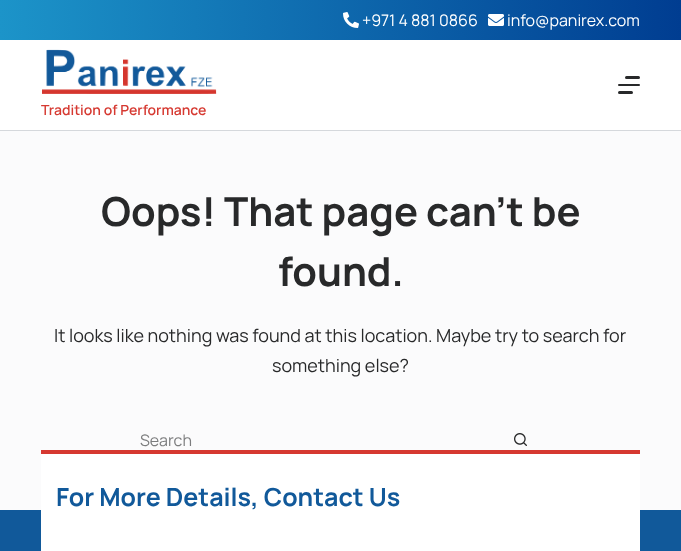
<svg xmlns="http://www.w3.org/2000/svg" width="681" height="551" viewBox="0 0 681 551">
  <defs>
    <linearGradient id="g1" gradientUnits="userSpaceOnUse" x1="0" y1="20" x2="681" y2="20"><stop offset="0" stop-color="#1c94c9"/><stop offset="1" stop-color="#003d91"/></linearGradient>
  </defs>
  <rect width="100%" height="100%" fill="#fbfbfc"/>
  <rect x="0" y="0" width="681" height="40" fill="url(#g1)"/>
  <image x="343" y="12" width="16" height="16" href="img1.png"/>
  <text x="362" y="26" font-family="Manrope" font-size="16" fill="#ffffff">+971 4 881 0866</text>
  <image x="488" y="14" width="16" height="12" href="img2.png"/>
  <text x="507" y="26" font-family="Manrope" font-size="16" fill="#ffffff">info@panirex.com</text>
  <rect x="0" y="40" width="681" height="90" fill="#ffffff"/>
  <rect x="0" y="130" width="681" height="1" fill="#d5d8dc"/>
  <rect x="625" y="76" width="15" height="3" rx="1.5" fill="#28292a"/>
  <rect x="618" y="84" width="22" height="2" rx="1" fill="#28292a"/>
  <rect x="618" y="91" width="15" height="3" rx="1.5" fill="#28292a"/>
  <image x="42" y="49" width="175" height="45" href="img3.png"/>
  <text x="41" y="115" font-family="Manrope" font-size="14" font-weight="600" fill="#d63931">Tradition of Performance</text>
  <text x="101" y="226" font-family="Manrope" font-size="40" font-weight="bold" fill="#28292a">Oops! That page can’t be</text>
  <text x="278" y="286" font-family="Manrope" font-size="40" font-weight="bold" fill="#28292a">found.</text>
  <text x="54" y="342" font-family="Manrope" font-size="18" fill="#28292a">It looks like nothing was found at this location. Maybe try to search for</text>
  <text x="272" y="372" font-family="Manrope" font-size="18" fill="#28292a">something else?</text>
  <text x="140" y="446" font-family="Manrope" font-size="16" fill="#7c7d7e">Search</text>
  <image x="514" y="433" width="13" height="13" href="img4.png"/>
  <rect x="0" y="510" width="681" height="41" fill="#11599a"/>
  <rect x="41" y="454" width="599" height="97" fill="#ffffff"/>
  <rect x="41" y="450" width="599" height="4" fill="#d63931"/>
  <text x="56" y="506" font-family="Manrope" font-size="25" font-weight="bold" fill="#11599a">For More Details, Contact Us</text>
</svg>
